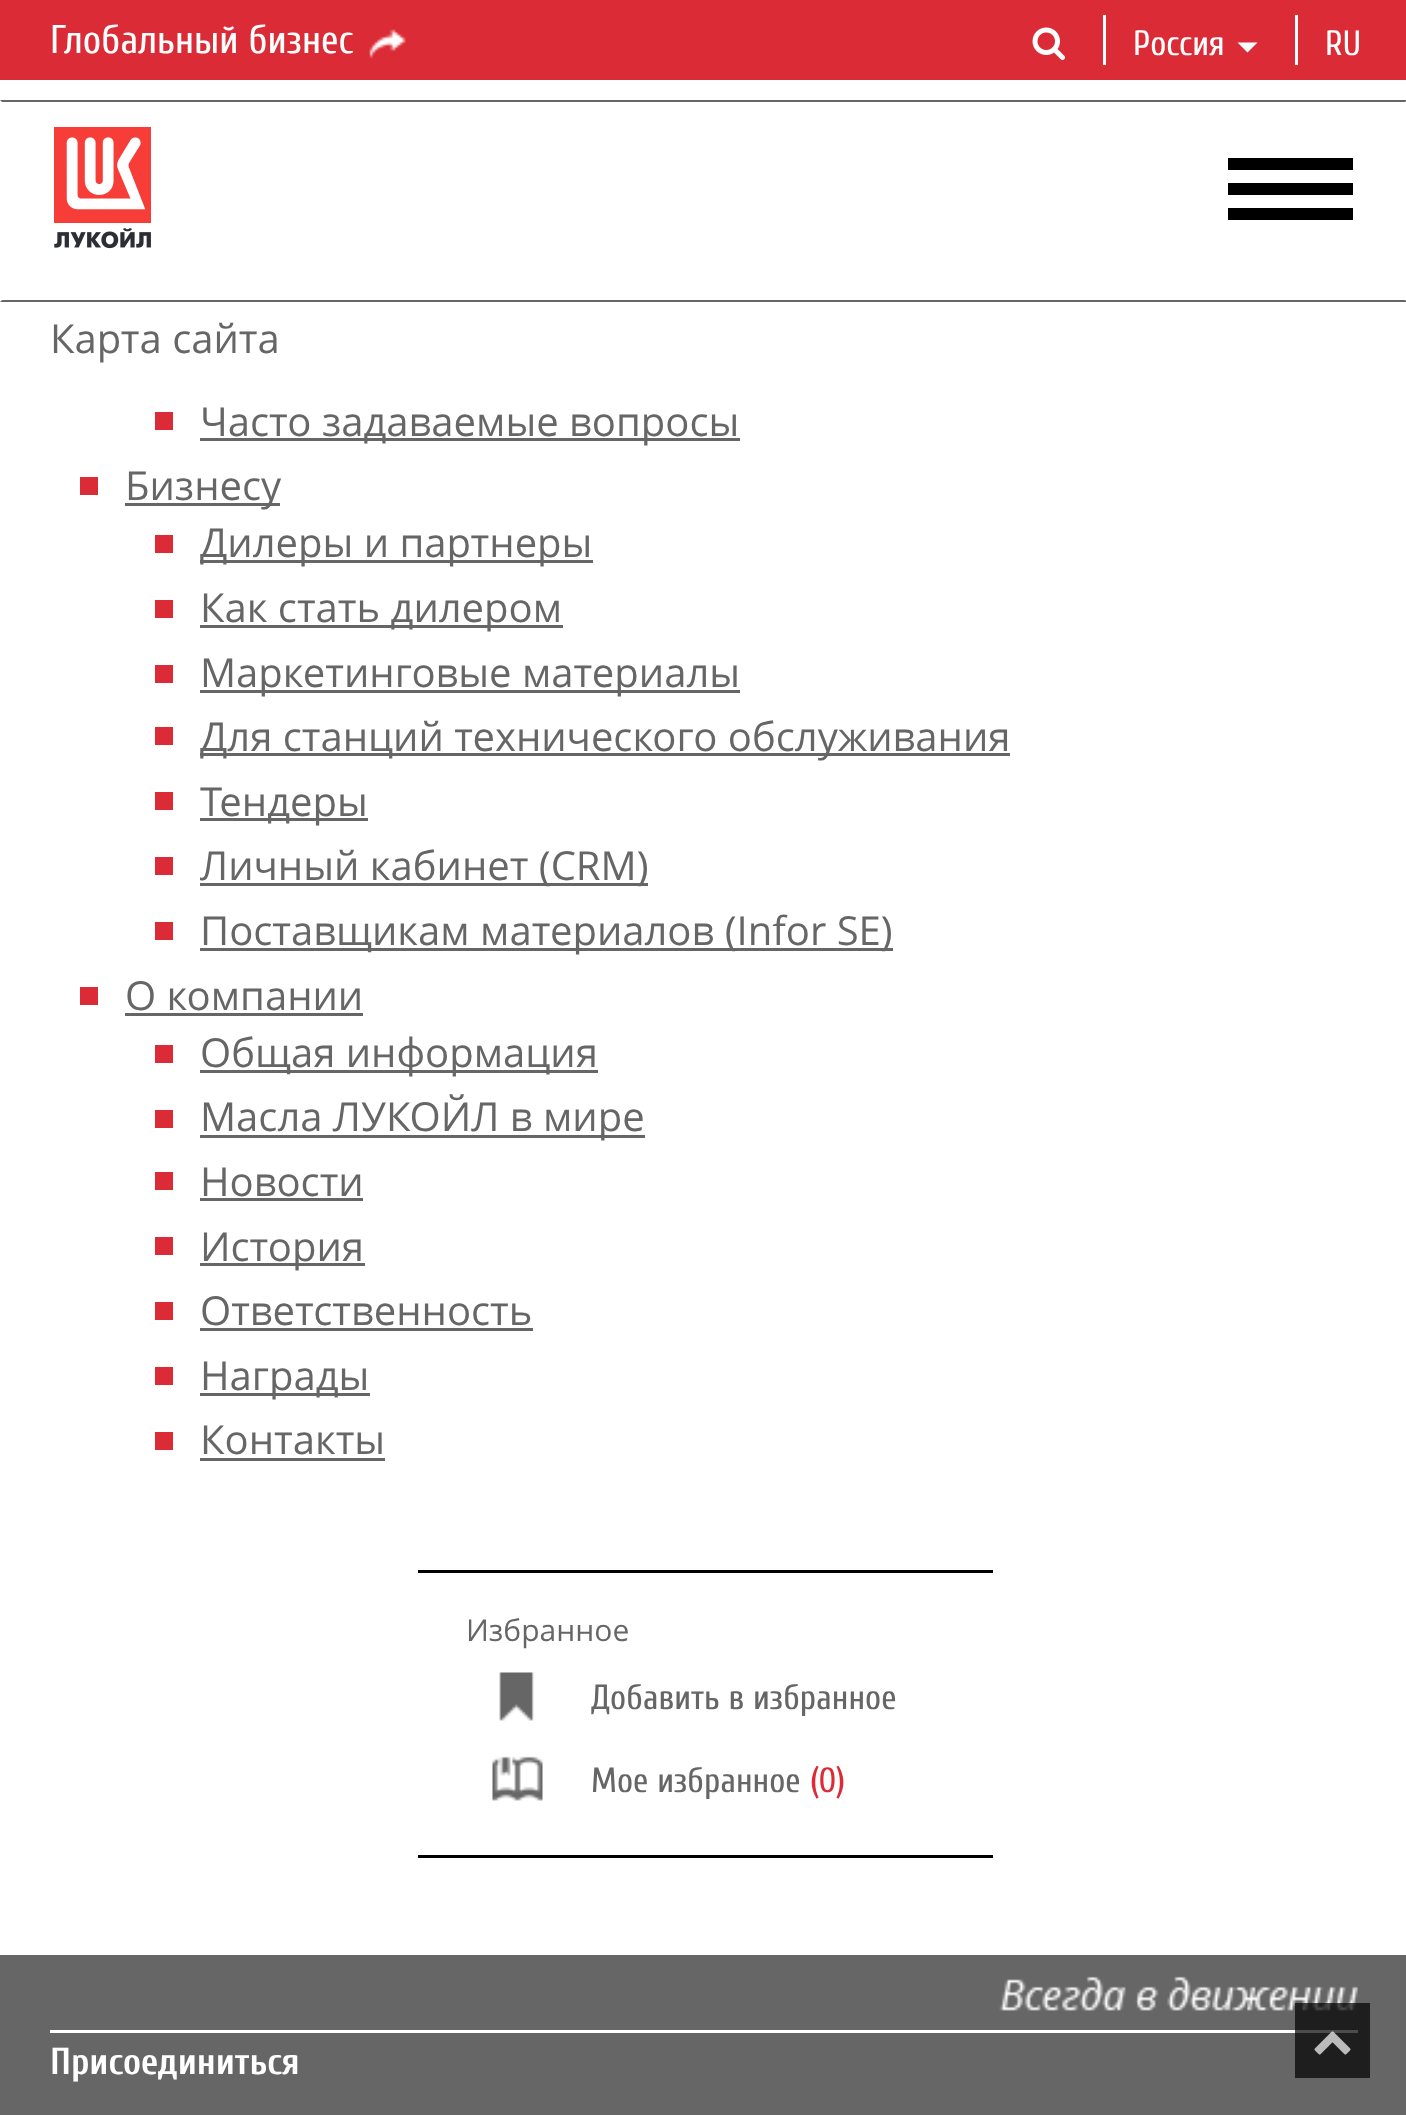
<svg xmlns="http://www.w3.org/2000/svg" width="1406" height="2115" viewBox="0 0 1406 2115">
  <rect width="100%" height="100%" fill="#ffffff"/>
  <rect x="0" y="0" width="1406" height="80" fill="#db2b36"/>
  <text x="50" y="53" font-family="Cuprum" font-size="40" fill="#ffffff">Глобальный бизнес</text>
  <image x="369" y="29" width="37" height="30" href="img1.png"/>
  <image x="1032" y="27" width="33" height="33" href="img2.png"/>
  <rect x="1103" y="15" width="3" height="50" fill="#ffffff"/>
  <text x="1133" y="55" font-family="Cuprum" font-size="35" fill="#ffffff">Россия</text>
  <path d="M1237.5 42.5H1257.5L1247.5 52.5Z" fill="#ffffff"/>
  <rect x="1295" y="15" width="3" height="50" fill="#ffffff"/>
  <text x="1325" y="55" font-family="Cuprum" font-size="35" fill="#ffffff">RU</text>
  <path d="M0 100H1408L1405 102H2Z" fill="#666666"/>
  <path d="M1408 302H0L2 300H1405Z" fill="#666666"/>
  <image x="54" y="127" width="97" height="122" href="img3.png"/>
  <rect x="1228" y="158" width="125" height="12" fill="#000000"/>
  <rect x="1228" y="183" width="125" height="12" fill="#000000"/>
  <rect x="1228" y="208" width="125" height="12" fill="#000000"/>
  <text x="50" y="353" font-family="Open Sans" font-size="40" fill="#666666">Карта сайта</text>
  <rect x="155" y="412" width="18" height="18" fill="#db2b36"/>
  <rect x="200" y="438" width="540" height="3" fill="#666666"/>
  <text x="200" y="436" font-family="Open Sans" font-size="40" fill="#666666">Часто задаваемые вопросы</text>
  <rect x="80" y="477" width="18" height="18" fill="#db2b36"/>
  <rect x="125" y="503" width="155" height="3" fill="#666666"/>
  <text x="125" y="500" font-family="Open Sans" font-size="40" fill="#666666">Бизнесу</text>
  <rect x="155" y="535" width="18" height="18" fill="#db2b36"/>
  <rect x="200" y="560" width="393" height="3" fill="#666666"/>
  <text x="200" y="557" font-family="Open Sans" font-size="40" fill="#666666">Дилеры и партнеры</text>
  <rect x="155" y="600" width="18" height="18" fill="#db2b36"/>
  <rect x="200" y="625" width="363" height="3" fill="#666666"/>
  <text x="200" y="622" font-family="Open Sans" font-size="40" fill="#666666">Как стать дилером</text>
  <rect x="155" y="665" width="18" height="18" fill="#db2b36"/>
  <rect x="200" y="690" width="540" height="3" fill="#666666"/>
  <text x="200" y="687" font-family="Open Sans" font-size="40" fill="#666666">Маркетинговые материалы</text>
  <rect x="155" y="727" width="18" height="18" fill="#db2b36"/>
  <rect x="200" y="753" width="810" height="3" fill="#666666"/>
  <text x="200" y="751" font-family="Open Sans" font-size="40" fill="#666666">Для станций технического обслуживания</text>
  <rect x="155" y="792" width="18" height="18" fill="#db2b36"/>
  <rect x="200" y="818" width="168" height="3" fill="#666666"/>
  <text x="200" y="816" font-family="Open Sans" font-size="40" fill="#666666">Тендеры</text>
  <rect x="155" y="857" width="18" height="18" fill="#db2b36"/>
  <rect x="200" y="883" width="448" height="3" fill="#666666"/>
  <text x="200" y="880" font-family="Open Sans" font-size="40" fill="#666666">Личный кабинет (CRM)</text>
  <rect x="155" y="922" width="18" height="18" fill="#db2b36"/>
  <rect x="200" y="948" width="693" height="3" fill="#666666"/>
  <text x="200" y="945" font-family="Open Sans" font-size="40" fill="#666666">Поставщикам материалов (Infor SE)</text>
  <rect x="80" y="987" width="18" height="18" fill="#db2b36"/>
  <text x="125" y="1010" font-family="Open Sans" font-size="40" fill="#666666">О компании</text>
  <rect x="125" y="1013" width="238" height="3" fill="#666666"/>
  <rect x="155" y="1045" width="18" height="18" fill="#db2b36"/>
  <rect x="200" y="1070" width="398" height="3" fill="#666666"/>
  <text x="200" y="1067" font-family="Open Sans" font-size="40" fill="#666666">Общая информация</text>
  <rect x="155" y="1110" width="18" height="18" fill="#db2b36"/>
  <rect x="200" y="1135" width="445" height="3" fill="#666666"/>
  <text x="200" y="1131" font-family="Open Sans" font-size="40" fill="#666666">Масла ЛУКОЙЛ в мире</text>
  <rect x="155" y="1172" width="18" height="18" fill="#db2b36"/>
  <text x="200" y="1196" font-family="Open Sans" font-size="40" fill="#666666">Новости</text>
  <rect x="200" y="1198" width="163" height="3" fill="#666666"/>
  <rect x="155" y="1237" width="18" height="18" fill="#db2b36"/>
  <rect x="200" y="1263" width="165" height="3" fill="#666666"/>
  <text x="200" y="1261" font-family="Open Sans" font-size="40" fill="#666666">История</text>
  <rect x="155" y="1302" width="18" height="18" fill="#db2b36"/>
  <text x="200" y="1325" font-family="Open Sans" font-size="40" fill="#666666">Ответственность</text>
  <rect x="200" y="1328" width="333" height="3" fill="#666666"/>
  <rect x="155" y="1367" width="18" height="18" fill="#db2b36"/>
  <rect x="200" y="1393" width="170" height="3" fill="#666666"/>
  <text x="200" y="1390" font-family="Open Sans" font-size="40" fill="#666666">Награды</text>
  <rect x="155" y="1432" width="18" height="18" fill="#db2b36"/>
  <text x="200" y="1454" font-family="Open Sans" font-size="40" fill="#666666">Контакты</text>
  <rect x="200" y="1458" width="185" height="3" fill="#666666"/>
  <rect x="418" y="1570" width="575" height="3" fill="#000000"/>
  <rect x="418" y="1855" width="575" height="3" fill="#000000"/>
  <text x="466" y="1641" font-family="Open Sans" font-size="30" fill="#666666">Избранное</text>
  <image x="499" y="1672" width="35" height="49" href="img4.png"/>
  <text x="591" y="1709" font-family="Cuprum" font-size="35" fill="#666666">Добавить в избранное</text>
  <image x="492" y="1756" width="51" height="45" href="img5.png"/>
  <text x="591" y="1792" font-family="Cuprum" font-size="35" fill="#666666">Мое избранное</text>
  <text x="810" y="1792" font-family="Cuprum" font-size="35" fill="#db2b36">(0)</text>
  <rect x="0" y="1955" width="1406" height="160" fill="#666666"/>
  <image x="999" y="1976" width="359" height="35" href="img6.png"/>
  <rect x="50" y="2030" width="1308" height="3" fill="#ffffff"/>
  <text x="50" y="2074" font-family="Cuprum" font-size="37.5" font-weight="bold" fill="#ffffff">Присоединиться</text>
  <rect x="1295" y="2003" width="75" height="75" fill="#000000" fill-opacity="0.7"/>
  <image x="1314" y="2031" width="37" height="24" href="img7.png"/>
</svg>
